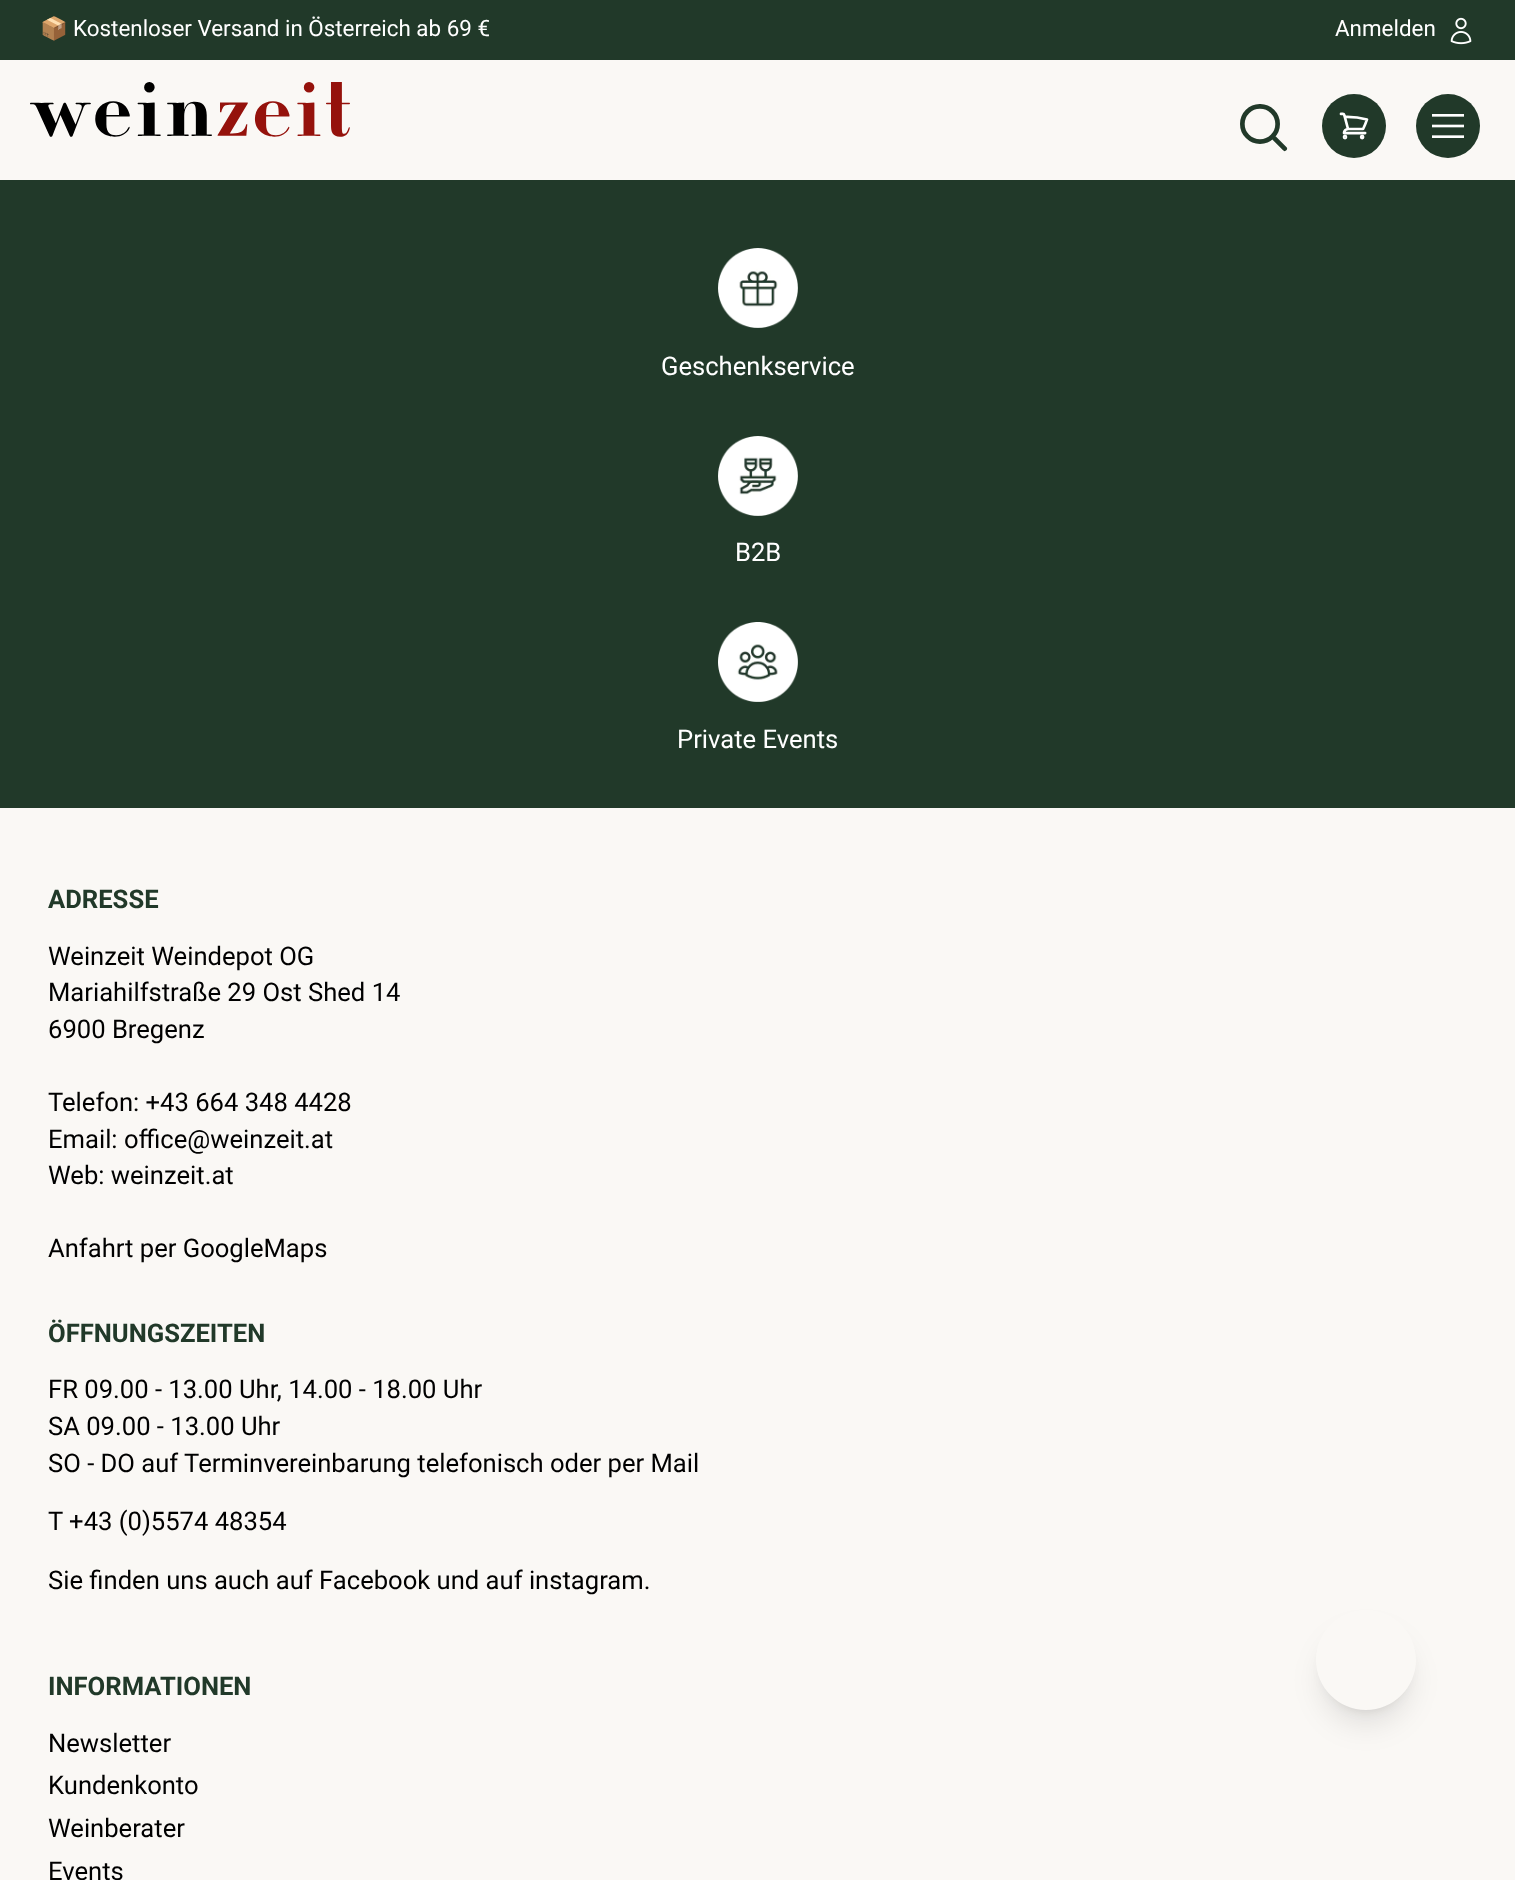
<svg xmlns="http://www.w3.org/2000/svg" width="1515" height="1880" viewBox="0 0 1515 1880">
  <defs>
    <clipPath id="clip1"><path d="M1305 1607H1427V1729H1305ZM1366 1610C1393.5 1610 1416 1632.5 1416 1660C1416 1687.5 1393.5 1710 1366 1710C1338.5 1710 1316 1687.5 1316 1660C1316 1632.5 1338.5 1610 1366 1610Z" clip-rule="evenodd"/></clipPath>
    <filter id="blur1" x="-50%" y="-200%" width="200%" height="500%"><feGaussianBlur stdDeviation="6"/></filter>
    <clipPath id="clip2"><path d="M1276 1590H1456V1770H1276ZM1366 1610C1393.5 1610 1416 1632.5 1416 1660C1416 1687.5 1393.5 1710 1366 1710C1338.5 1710 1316 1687.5 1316 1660C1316 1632.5 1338.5 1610 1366 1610Z" clip-rule="evenodd"/></clipPath>
    <filter id="blur2" x="-50%" y="-200%" width="200%" height="500%"><feGaussianBlur stdDeviation="15"/></filter>
  </defs>
  <rect width="100%" height="100%" fill="#faf8f5"/>
  <rect x="0" y="0" width="1515" height="60" fill="#213929"/>
  <text x="40" y="36" font-family="Noto Color Emoji" font-size="22.4" fill="#ffffff">📦</text>
  <text x="73" y="36" font-family="Roboto" font-size="22.4" fill="#ffffff">Kostenloser Versand in Österreich ab 69 €</text>
  <text x="1335" y="36" font-family="Roboto" font-size="22.4" fill="#ffffff">Anmelden</text>
  <image x="1450" y="17" width="22" height="28" href="img1.png"/>
  <image x="30" y="82" width="320" height="55" href="img2.png"/>
  <image x="1240" y="104" width="48" height="48" href="img3.png"/>
  <image x="1322" y="94" width="64" height="64" href="img4.png"/>
  <image x="1416" y="94" width="64" height="64" href="img5.png"/>
  <rect x="0" y="180" width="1515" height="628" fill="#213929"/>
  <image x="718" y="248" width="80" height="80" href="img6.png"/>
  <text x="661" y="375" font-family="Roboto" font-size="25.6" fill="#ffffff">Geschenkservice</text>
  <image x="718" y="436" width="80" height="80" href="img7.png"/>
  <text x="735" y="561" font-family="Roboto" font-size="25.6" fill="#ffffff">B2B</text>
  <image x="718" y="622" width="80" height="80" href="img8.png"/>
  <text x="677" y="748" font-family="Roboto" font-size="25.6" fill="#ffffff">Private Events</text>
  <text x="48" y="908" font-family="Roboto" font-size="25.6" font-weight="bold" fill="#213929">ADRESSE</text>
  <text x="48" y="965" font-family="Roboto" font-size="25.6" fill="#000000">Weinzeit Weindepot OG</text>
  <text x="48" y="1001" font-family="Roboto" font-size="25.6" fill="#000000">Mariahilfstraße 29 Ost Shed 14</text>
  <text x="48" y="1038" font-family="Roboto" font-size="25.6" fill="#000000">6900 Bregenz</text>
  <text x="48" y="1111" font-family="Roboto" font-size="25.6" fill="#000000">Telefon: +43 664 348 4428</text>
  <text x="48" y="1148" font-family="Roboto" font-size="25.6" fill="#000000">Email: office@weinzeit.at</text>
  <text x="48" y="1184" font-family="Roboto" font-size="25.6" fill="#000000">Web: weinzeit.at</text>
  <text x="48" y="1257" font-family="Roboto" font-size="25.6" fill="#000000">Anfahrt per GoogleMaps</text>
  <text x="48" y="1342" font-family="Roboto" font-size="25.6" font-weight="bold" fill="#213929">ÖFFNUNGSZEITEN</text>
  <text x="48" y="1398" font-family="Roboto" font-size="25.6" fill="#000000">FR 09.00 - 13.00 Uhr, 14.00 - 18.00 Uhr</text>
  <text x="48" y="1435" font-family="Roboto" font-size="25.6" fill="#000000">SA 09.00 - 13.00 Uhr</text>
  <text x="48" y="1472" font-family="Roboto" font-size="25.6" fill="#000000">SO - DO auf Terminvereinbarung telefonisch oder per Mail</text>
  <text x="48" y="1530" font-family="Roboto" font-size="25.6" fill="#000000">T +43 (0)5574 48354</text>
  <text x="48" y="1589" font-family="Roboto" font-size="25.6" fill="#000000">Sie finden uns auch auf Facebook und auf instagram.</text>
  <text x="48" y="1695" font-family="Roboto" font-size="25.6" font-weight="bold" fill="#213929">INFORMATIONEN</text>
  <text x="48" y="1752" font-family="Roboto" font-size="25.6" fill="#000000">Newsletter</text>
  <text x="48" y="1794" font-family="Roboto" font-size="25.6" fill="#000000">Kundenkonto</text>
  <text x="48" y="1837" font-family="Roboto" font-size="25.6" fill="#000000">Weinberater</text>
  <text x="48" y="1880" font-family="Roboto" font-size="25.6" fill="#000000">Events</text>
  <g clip-path="url(#clip1)">
    <rect x="1324" y="1626" width="84" height="84" rx="42" fill="#000000" fill-opacity="0.1" filter="url(#blur1)"/>
  </g>
  <g clip-path="url(#clip2)">
    <rect x="1322" y="1636" width="88" height="88" rx="44" fill="#000000" fill-opacity="0.1" filter="url(#blur2)"/>
  </g>
</svg>
